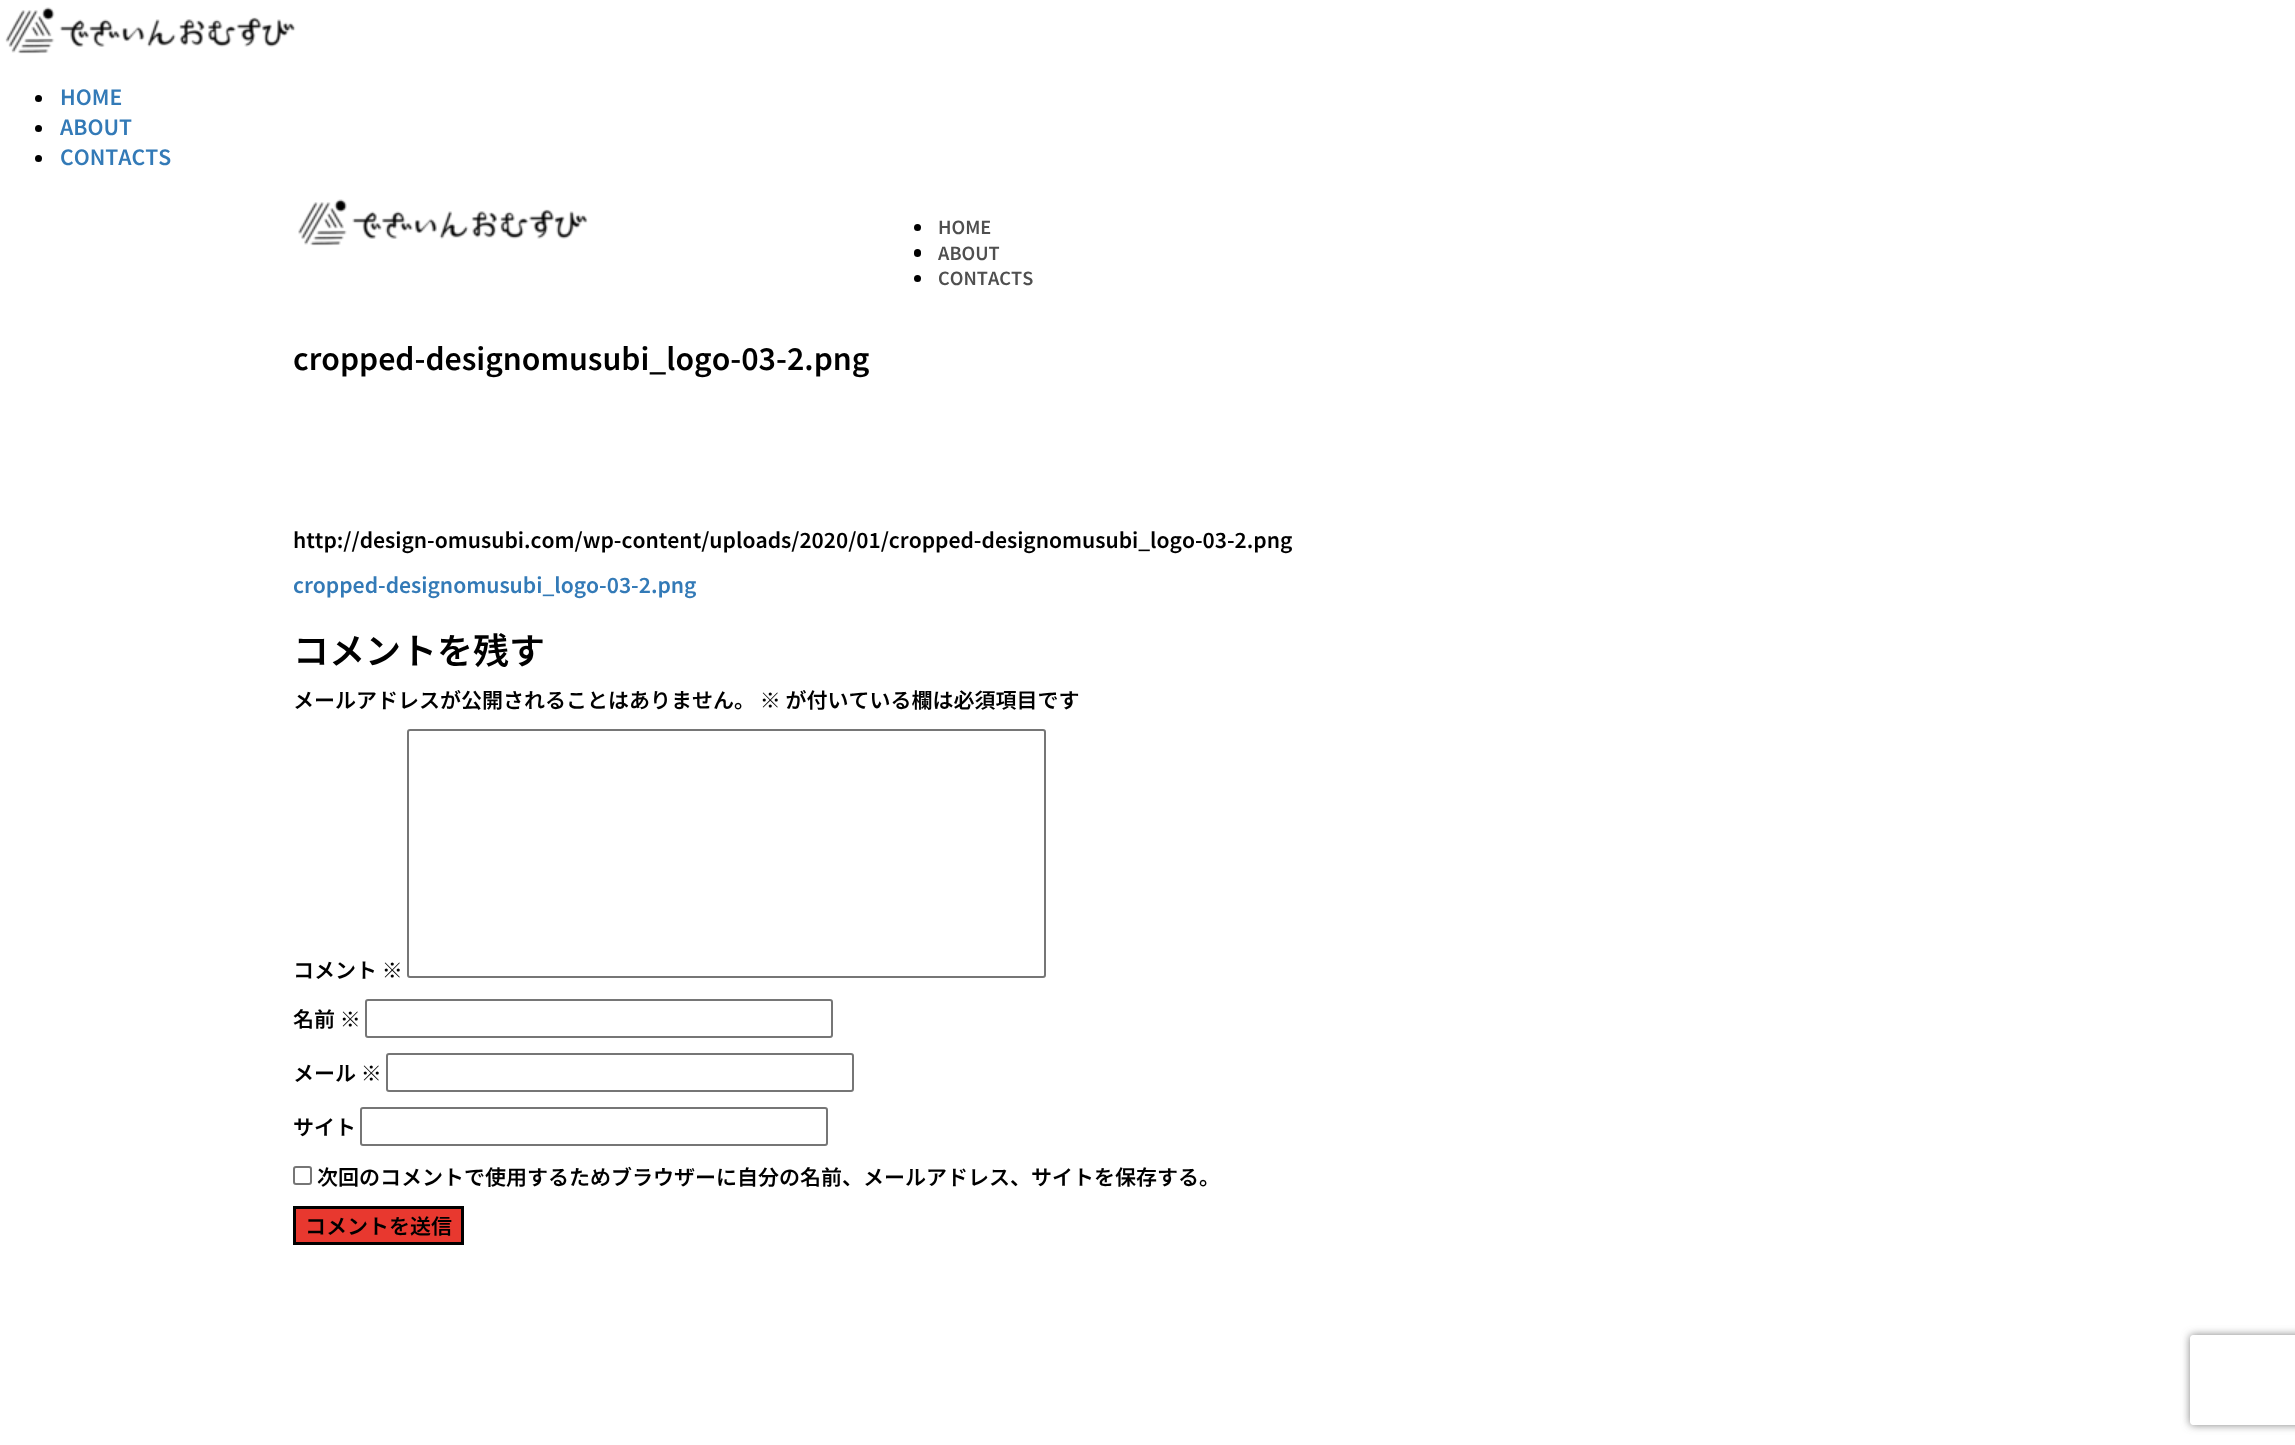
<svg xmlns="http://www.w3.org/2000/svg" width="2295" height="1445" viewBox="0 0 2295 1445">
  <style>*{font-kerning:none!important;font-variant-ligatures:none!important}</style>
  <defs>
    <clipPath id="clip1"><path d="M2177 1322H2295V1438H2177ZM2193 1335H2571C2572.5 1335 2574 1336.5 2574 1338V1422C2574 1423.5 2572.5 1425 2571 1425H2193C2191.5 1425 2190 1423.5 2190 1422V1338C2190 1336.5 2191.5 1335 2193 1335Z" clip-rule="evenodd"/></clipPath>
    <filter id="blur1" x="-50%" y="-200%" width="200%" height="500%"><feGaussianBlur stdDeviation="4"/></filter>
  </defs>
  <rect width="100%" height="100%" fill="#ffffff"/>
  <image x="5" y="7" width="291" height="47" href="img1.png"/>
  <circle cx="38.5" cy="98.5" r="3.5" fill="#000000"/>
  <text x="60" y="105" font-family="Noto Sans JP" font-size="21" font-weight="100" fill="#337ab7">HOME</text>
  <circle cx="38.5" cy="128.5" r="3.5" fill="#000000"/>
  <text x="60" y="135" font-family="Noto Sans JP" font-size="21" font-weight="100" fill="#337ab7">ABOUT</text>
  <circle cx="38.5" cy="158.5" r="3.5" fill="#000000"/>
  <text x="60" y="165" font-family="Noto Sans JP" font-size="21" font-weight="100" fill="#337ab7">CONTACTS</text>
  <image x="298" y="199" width="290" height="47" href="img2.png"/>
  <circle cx="917.5" cy="227.5" r="3.5" fill="#000000"/>
  <text x="938" y="234" font-family="Noto Sans JP" font-size="18" font-weight="100" fill="#4f4f4f">HOME</text>
  <rect x="914" y="249" width="7" height="8" rx="3.5" fill="#000000"/>
  <text x="938" y="260" font-family="Noto Sans JP" font-size="18" font-weight="100" fill="#4f4f4f">ABOUT</text>
  <circle cx="917.5" cy="278.5" r="3.5" fill="#000000"/>
  <text x="938" y="285" font-family="Noto Sans JP" font-size="18" font-weight="100" fill="#4f4f4f">CONTACTS</text>
  <text x="293" y="370" font-family="Noto Sans JP" font-size="30" font-weight="100" fill="#000000">cropped-designomusubi_logo-03-2.png</text>
  <text x="293" y="548" font-family="Noto Sans JP" font-size="21" font-weight="100" fill="#000000">http://design-omusubi.com/wp-content/uploads/2020/01/cropped-designomusubi_logo-03-2.png</text>
  <text x="293" y="593" font-family="Noto Sans JP" font-size="21" font-weight="100" fill="#337ab7">cropped-designomusubi_logo-03-2.png</text>
  <text x="293" y="664" font-family="Noto Sans JP" font-size="36" font-weight="100" fill="#000000">コメントを残す</text>
  <text x="293" y="708" font-family="Noto Sans JP" font-size="21" font-weight="100" fill="#000000">メールアドレスが公開されることはありません。 ※ が付いている欄は必須項目です</text>
  <text x="293" y="978" font-family="Noto Sans JP" font-size="21" font-weight="100" fill="#000000">コメント ※</text>
  <rect x="408" y="730" width="637" height="247" rx="2" fill="none" stroke="#767676" stroke-width="2"/>
  <text x="293" y="1027" font-family="Noto Sans JP" font-size="21" font-weight="100" fill="#000000">名前 ※</text>
  <rect x="366" y="1000" width="466" height="37" rx="2" fill="none" stroke="#767676" stroke-width="2"/>
  <text x="293" y="1081" font-family="Noto Sans JP" font-size="21" font-weight="100" fill="#000000">メール ※</text>
  <rect x="387" y="1054" width="466" height="37" rx="2" fill="none" stroke="#767676" stroke-width="2"/>
  <text x="293" y="1135" font-family="Noto Sans JP" font-size="21" font-weight="100" fill="#000000">サイト</text>
  <rect x="361" y="1108" width="466" height="37" rx="2" fill="none" stroke="#767676" stroke-width="2"/>
  <rect x="294" y="1167" width="17" height="17" rx="2" fill="none" stroke="#767676" stroke-width="2"/>
  <text x="317" y="1185" font-family="Noto Sans JP" font-size="21" font-weight="100" fill="#000000">次回のコメントで使用するためブラウザーに自分の名前、メールアドレス、サイトを保存する。</text>
  <rect x="294.5" y="1207.5" width="168" height="36" fill="#e8382f" stroke="#000000" stroke-width="3"/>
  <text x="305" y="1234" font-family="Noto Sans JP" font-size="21" font-weight="100" fill="#000000">コメントを送信</text>
  <g clip-path="url(#clip1)">
    <rect x="2190" y="1335" width="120" height="90" rx="3" fill="#808080" filter="url(#blur1)"/>
  </g>
</svg>
